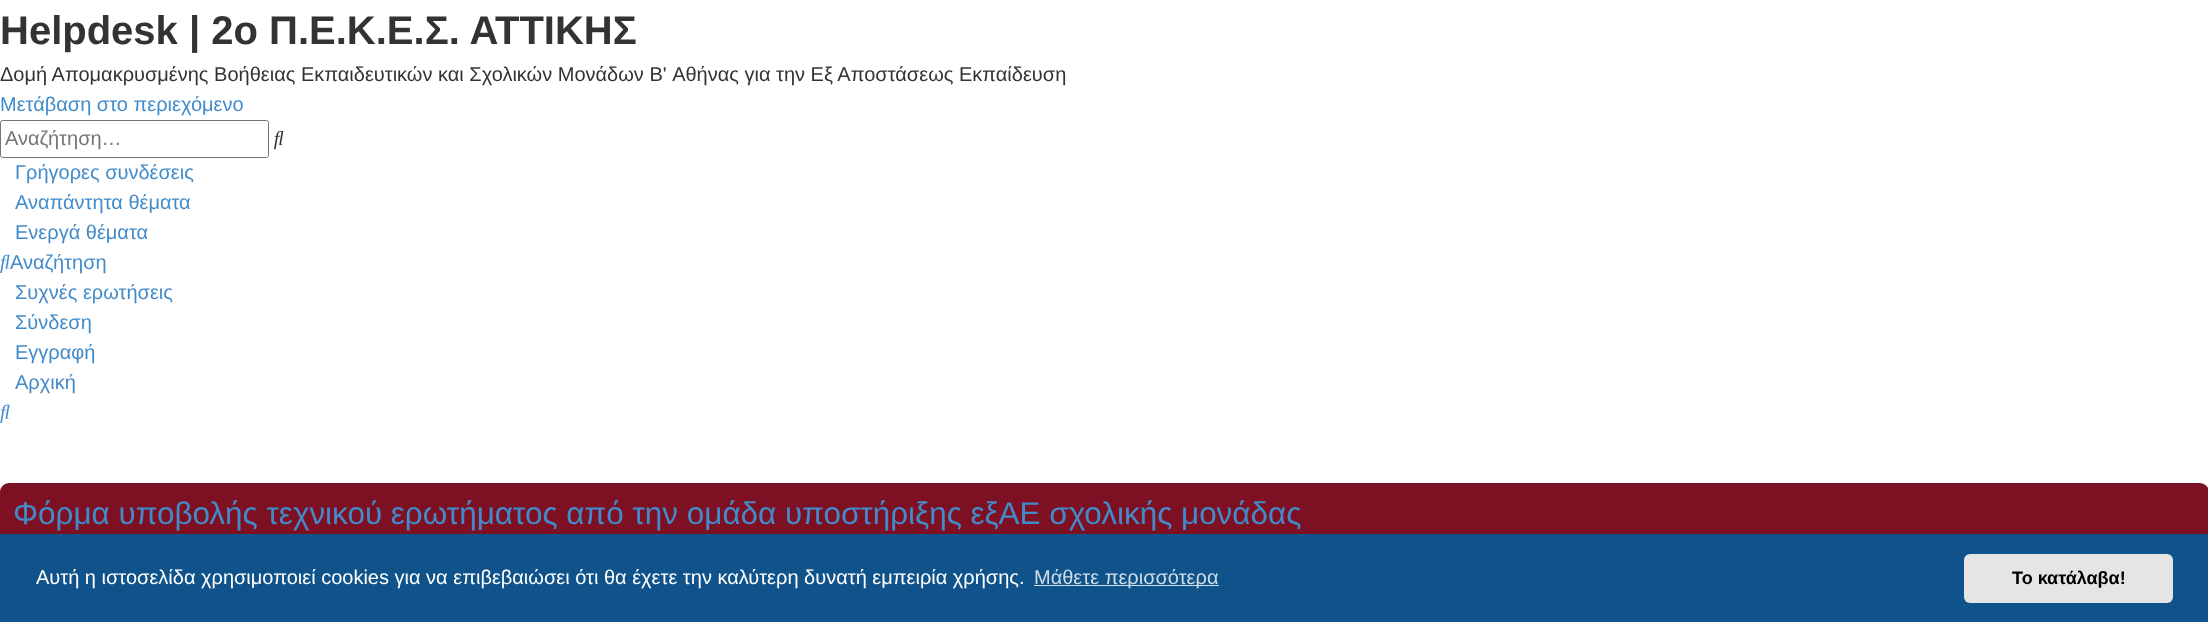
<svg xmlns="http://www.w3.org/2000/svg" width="2208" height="622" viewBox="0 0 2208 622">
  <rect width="100%" height="100%" fill="#ffffff"/>
  <text x="0" y="44" font-family="Liberation Sans" font-size="40" font-weight="bold" fill="#333333">Helpdesk | 2ο Π.Ε.Κ.Ε.Σ. ΑΤΤΙΚΗΣ</text>
  <text x="0" y="81" font-family="Liberation Sans" font-size="20" fill="#333333">Δομή Απομακρυσμένης Βοήθειας Εκπαιδευτικών και Σχολικών Μονάδων B' Αθήνας για την Εξ Αποστάσεως Εκπαίδευση</text>
  <text x="0" y="111" font-family="Liberation Sans" font-size="20" fill="#428bca">Μετάβαση στο περιεχόμενο</text>
  <rect x="0.5" y="120.5" width="268" height="37" rx="2" fill="none" stroke="#767676"/>
  <text x="5" y="145" font-family="Liberation Sans" font-size="20" fill="#757575">Αναζήτηση…</text>
  <image x="274" y="130" width="10" height="20" href="img1.png"/>
  <text x="15" y="179" font-family="Liberation Sans" font-size="20" fill="#428bca">Γρήγορες συνδέσεις</text>
  <text x="15" y="209" font-family="Liberation Sans" font-size="20" fill="#428bca">Αναπάντητα θέματα</text>
  <text x="15" y="239" font-family="Liberation Sans" font-size="20" fill="#428bca">Ενεργά θέματα</text>
  <image x="0" y="254" width="10" height="19" href="img2.png"/>
  <text x="10" y="269" font-family="Liberation Sans" font-size="20" fill="#428bca">Αναζήτηση</text>
  <text x="15" y="299" font-family="Liberation Sans" font-size="20" fill="#428bca">Συχνές ερωτήσεις</text>
  <text x="15" y="329" font-family="Liberation Sans" font-size="20" fill="#428bca">Σύνδεση</text>
  <text x="15" y="359" font-family="Liberation Sans" font-size="20" fill="#428bca">Εγγραφή</text>
  <text x="15" y="389" font-family="Liberation Sans" font-size="20" fill="#428bca">Αρχική</text>
  <image x="0" y="404" width="10" height="19" href="img2.png"/>
  <rect x="0" y="483" width="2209" height="63" rx="9" fill="#7d1123"/>
  <text x="13" y="524" font-family="Liberation Sans" font-size="31.45" fill="#428bca">Φόρμα υποβολής τεχνικού ερωτήματος από την ομάδα υποστήριξης εξΑΕ σχολικής μονάδας</text>
  <rect x="0" y="534" width="2208" height="88" fill="#0f538a"/>
  <text x="36" y="584" font-family="Liberation Sans" font-size="20" fill="#ffffff">Αυτή η ιστοσελίδα χρησιμοποιεί cookies για να επιβεβαιώσει ότι θα έχετε την καλύτερη δυνατή εμπειρία χρήσης.</text>
  <rect x="1034" y="585" width="185" height="1" fill="#cfdde8"/>
  <text x="1034" y="584" font-family="Liberation Sans" font-size="20" fill="#cfdde8">Μάθετε περισσότερα</text>
  <rect x="1964" y="554" width="209" height="49" rx="6" fill="#e5e5e5"/>
  <text x="2012" y="584" font-family="Liberation Sans" font-size="18" font-weight="bold" fill="#000000">Το κατάλαβα!</text>
</svg>
